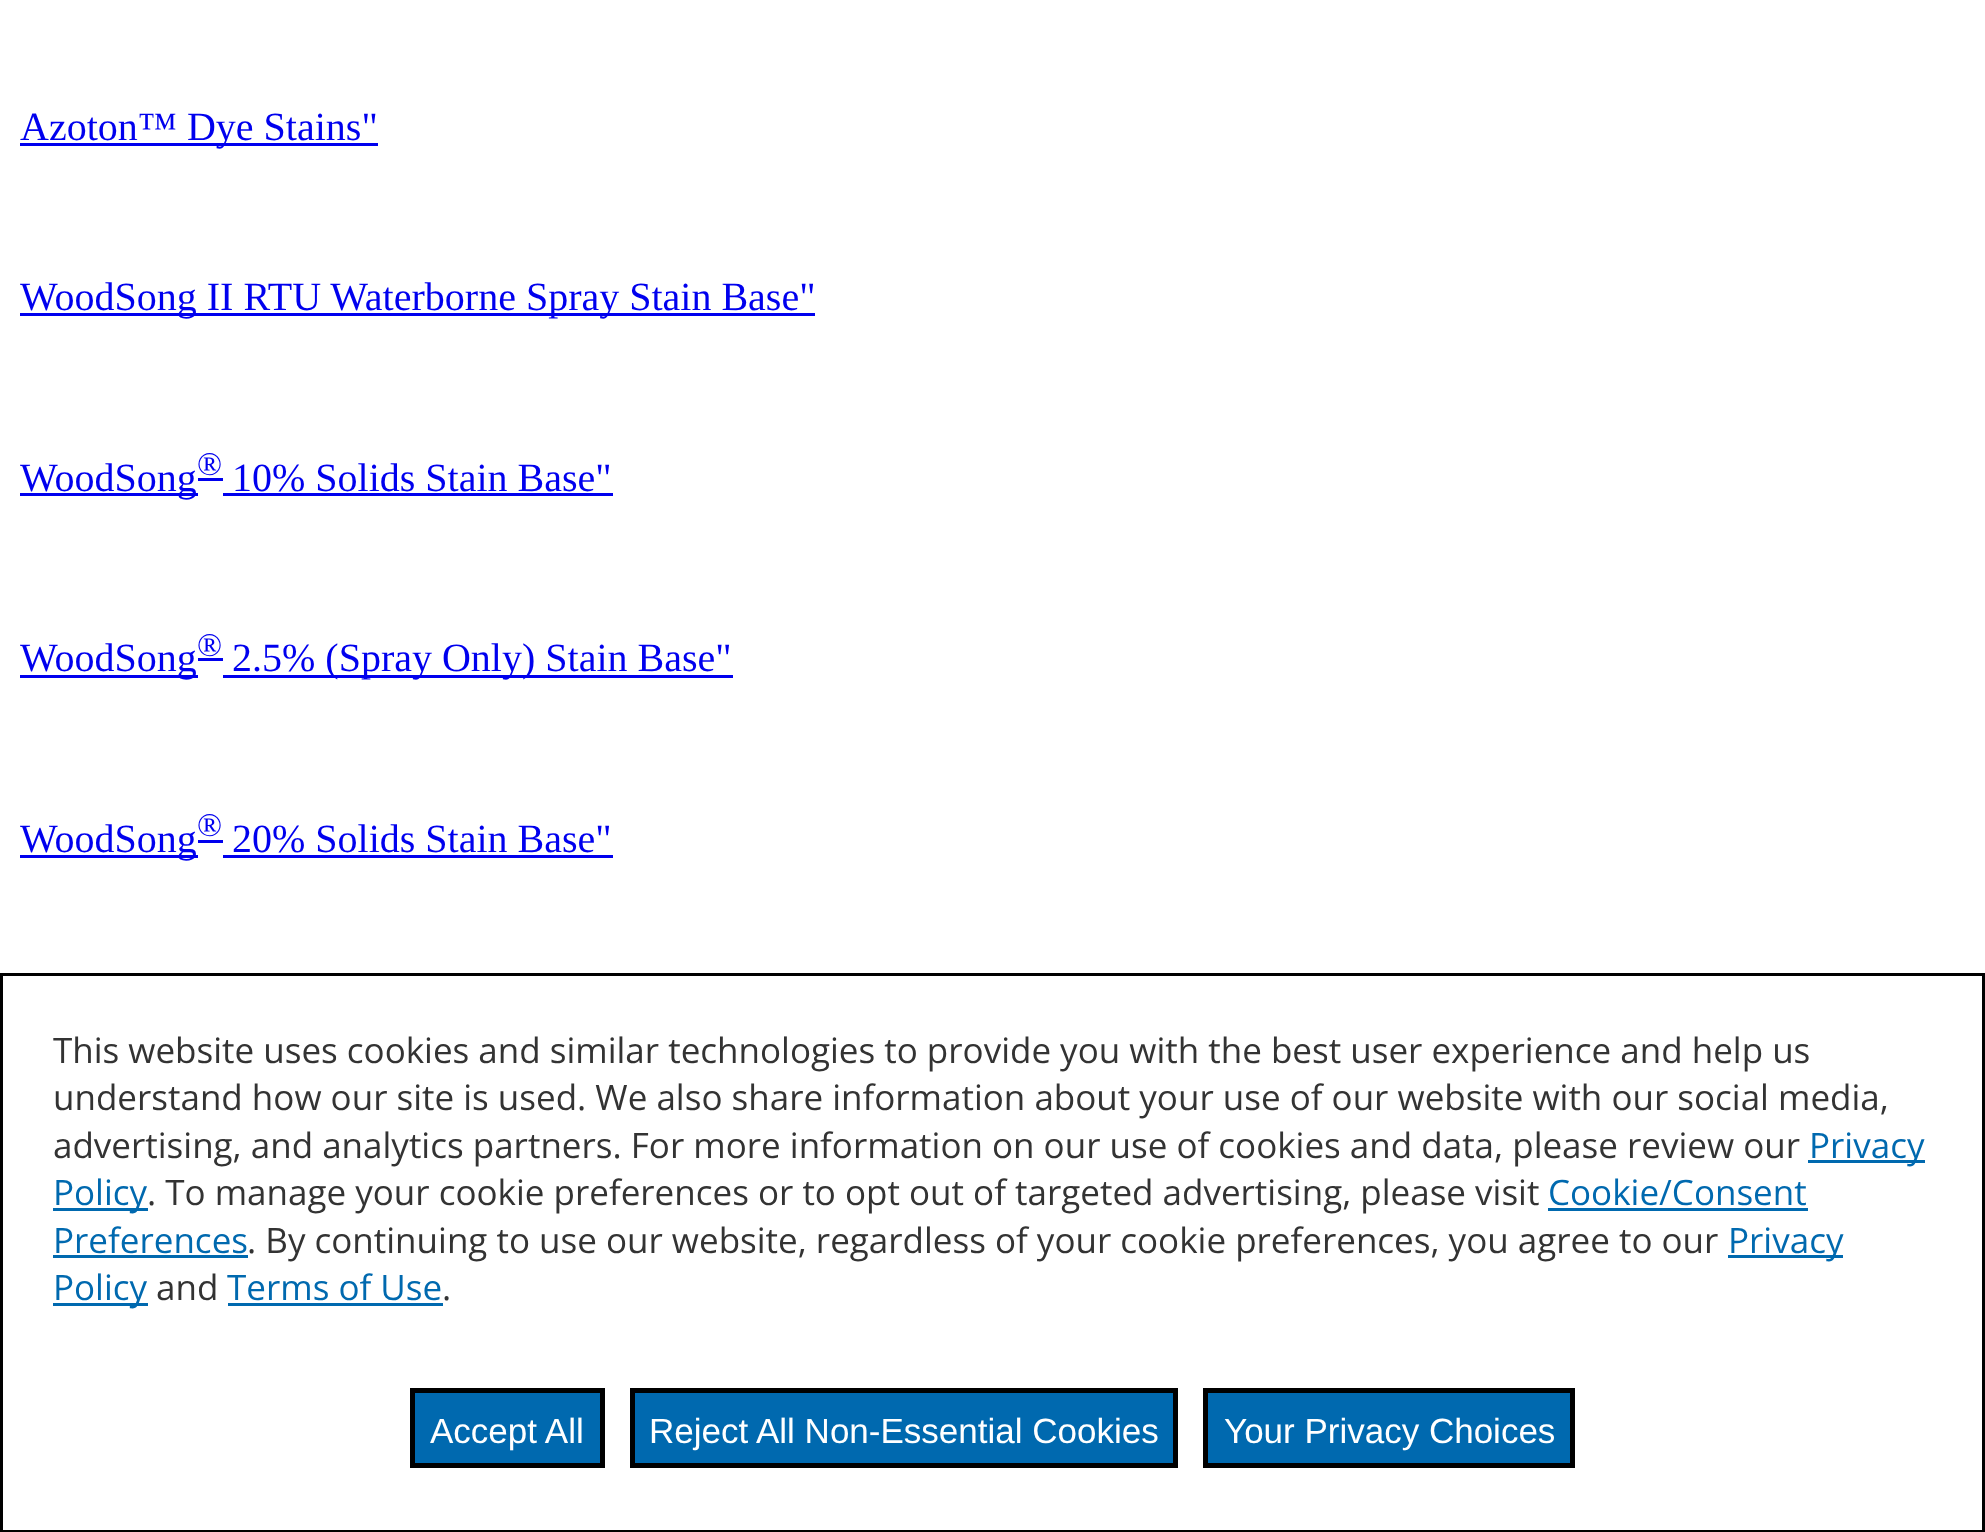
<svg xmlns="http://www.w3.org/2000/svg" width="1985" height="1532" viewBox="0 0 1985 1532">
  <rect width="100%" height="100%" fill="#ffffff"/>
  <rect x="20" y="143" width="358" height="3" fill="#0000ee"/>
  <text x="20" y="140" font-family="Liberation Serif" font-size="40" fill="#0000ee">Azoton™ Dye Stains"</text>
  <rect x="20" y="313" width="795" height="3" fill="#0000ee"/>
  <text x="20" y="310" font-family="Liberation Serif" font-size="40" fill="#0000ee">WoodSong II RTU Waterborne Spray Stain Base"</text>
  <rect x="20" y="493" width="178" height="3" fill="#0000ee"/>
  <text x="20" y="491" font-family="Liberation Serif" font-size="40" fill="#0000ee">WoodSong</text>
  <rect x="198" y="478" width="25" height="3" fill="#0000ee"/>
  <text x="197" y="475" font-family="Liberation Serif" font-size="33" fill="#0000ee">®</text>
  <text x="232" y="491" font-family="Liberation Serif" font-size="40" fill="#0000ee">10% Solids Stain Base"</text>
  <rect x="223" y="493" width="390" height="3" fill="#0000ee"/>
  <rect x="20" y="675" width="178" height="3" fill="#0000ee"/>
  <text x="20" y="671" font-family="Liberation Serif" font-size="40" fill="#0000ee">WoodSong</text>
  <rect x="198" y="658" width="25" height="3" fill="#0000ee"/>
  <text x="197" y="656" font-family="Liberation Serif" font-size="33" fill="#0000ee">®</text>
  <rect x="223" y="675" width="510" height="3" fill="#0000ee"/>
  <text x="232" y="671" font-family="Liberation Serif" font-size="40" fill="#0000ee">2.5% (Spray Only) Stain Base"</text>
  <rect x="20" y="855" width="178" height="3" fill="#0000ee"/>
  <text x="20" y="852" font-family="Liberation Serif" font-size="40" fill="#0000ee">WoodSong</text>
  <rect x="198" y="840" width="25" height="3" fill="#0000ee"/>
  <text x="197" y="836" font-family="Liberation Serif" font-size="33" fill="#0000ee">®</text>
  <text x="232" y="852" font-family="Liberation Serif" font-size="40" fill="#0000ee">20% Solids Stain Base"</text>
  <rect x="223" y="855" width="390" height="3" fill="#0000ee"/>
  <rect x="1.5" y="974.5" width="1982" height="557" fill="none" stroke="#000000" stroke-width="3"/>
  <text x="53" y="1063" font-family="Open Sans" font-size="35" fill="#333333">This website uses cookies and similar technologies to provide you with the best user experience and help us</text>
  <text x="53" y="1110" font-family="Open Sans" font-size="35" fill="#333333">understand how our site is used. We also share information about your use of our website with our social media,</text>
  <text x="53" y="1158" font-family="Open Sans" font-size="35" fill="#333333">advertising, and analytics partners. For more information on our use of cookies and data, please review our</text>
  <rect x="1808" y="1160" width="117" height="3" fill="#0069af"/>
  <text x="1809" y="1158" font-family="Open Sans" font-size="35" fill="#0069af">Privacy</text>
  <rect x="53" y="1208" width="95" height="3" fill="#0069af"/>
  <text x="53" y="1205" font-family="Open Sans" font-size="35" fill="#0069af">Policy</text>
  <text x="147" y="1205" font-family="Open Sans" font-size="35" fill="#333333">. To manage your cookie preferences or to opt out of targeted advertising, please visit</text>
  <text x="1548" y="1205" font-family="Open Sans" font-size="35" fill="#0069af">Cookie/Consent</text>
  <rect x="1548" y="1208" width="260" height="3" fill="#0069af"/>
  <text x="53" y="1253" font-family="Open Sans" font-size="35" fill="#0069af">Preferences</text>
  <rect x="53" y="1255" width="195" height="3" fill="#0069af"/>
  <text x="247" y="1253" font-family="Open Sans" font-size="35" fill="#333333">. By continuing to use our website, regardless of your cookie preferences, you agree to our</text>
  <rect x="1728" y="1255" width="115" height="3" fill="#0069af"/>
  <text x="1728" y="1253" font-family="Open Sans" font-size="35" fill="#0069af">Privacy</text>
  <rect x="53" y="1303" width="95" height="3" fill="#0069af"/>
  <text x="53" y="1300" font-family="Open Sans" font-size="35" fill="#0069af">Policy</text>
  <text x="156" y="1300" font-family="Open Sans" font-size="35" fill="#333333">and</text>
  <text x="227" y="1300" font-family="Open Sans" font-size="35" fill="#0069af">Terms of Use</text>
  <rect x="228" y="1303" width="215" height="3" fill="#0069af"/>
  <text x="442" y="1300" font-family="Open Sans" font-size="35" fill="#333333">.</text>
  <rect x="412.5" y="1390.5" width="190" height="75" fill="#0069af" stroke="#000000" stroke-width="5"/>
  <text x="430" y="1443" font-family="Liberation Sans" font-size="35" fill="#ffffff">Accept All</text>
  <rect x="632.5" y="1390.5" width="543" height="75" fill="#0069af" stroke="#000000" stroke-width="5"/>
  <text x="649" y="1443" font-family="Liberation Sans" font-size="35" fill="#ffffff">Reject All Non-Essential Cookies</text>
  <rect x="1205.5" y="1390.5" width="367" height="75" fill="#0069af" stroke="#000000" stroke-width="5"/>
  <text x="1224" y="1443" font-family="Liberation Sans" font-size="35" fill="#ffffff">Your Privacy Choices</text>
</svg>
